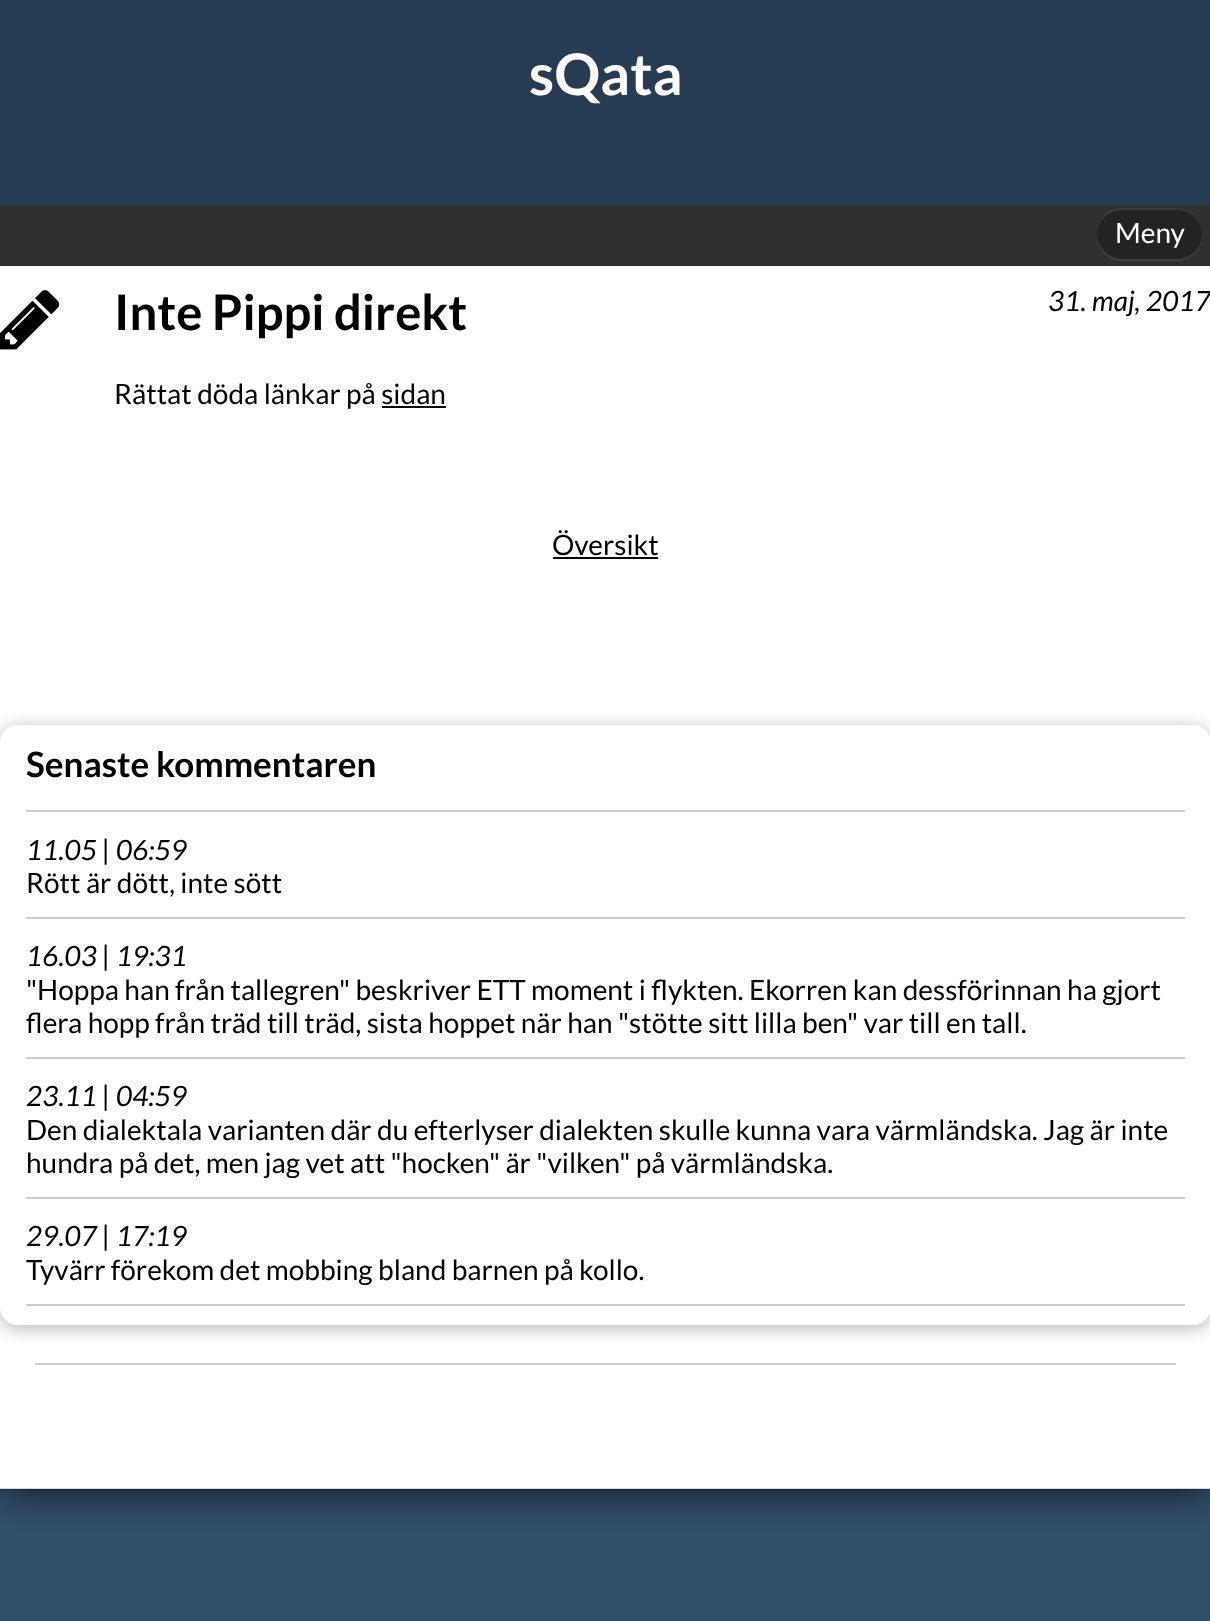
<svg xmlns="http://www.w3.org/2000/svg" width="1210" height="1621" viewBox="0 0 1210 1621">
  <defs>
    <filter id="blur1" x="-50%" y="-200%" width="200%" height="500%"><feGaussianBlur stdDeviation="21"/></filter>
    <filter id="blur2" x="-50%" y="-200%" width="200%" height="500%"><feGaussianBlur stdDeviation="9"/></filter>
  </defs>
  <rect width="100%" height="100%" fill="#314f6b"/>
  <rect x="0" y="0" width="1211" height="1489" fill="#000000" fill-opacity="0.8" filter="url(#blur1)"/>
  <rect x="0" y="266" width="1210" height="1223" fill="#ffffff"/>
  <rect x="0" y="1488" width="1210" height="2" fill="#000000" fill-opacity="0.15"/>
  <rect x="0" y="0" width="1210" height="205" fill="#263c52"/>
  <text x="529" y="95" font-family="Lato" font-size="57.5" font-weight="bold" fill="#ffffff">sQata</text>
  <rect x="0" y="205" width="1210" height="61" fill="#303030"/>
  <path d="M1097 231V236C1097 250 1108 261 1122 261H1176C1190 261 1201 251 1202 238C1200 250 1189 259 1177 259H1123C1109 259 1097 248 1097 234Z" fill="#404040"/>
  <rect x="1097" y="208" width="105" height="51" rx="25.5" fill="#232323"/>
  <path d="M1123 210H1177C1191 210 1202 221 1202 234C1202 219 1191 208 1176 208H1122C1108 208 1097 219 1097 234C1097 221 1109 210 1123 210Z" fill="#ffffff" fill-opacity="0.1"/>
  <text x="1115" y="243" font-family="Lato" font-size="28" fill="#ffffff">Meny</text>
  <image x="0" y="290" width="60" height="60" href="img1.png"/>
  <text x="114" y="330" font-family="Lato" font-size="49" font-weight="bold" fill="#000000">Inte Pippi direkt</text>
  <text x="1048" y="311" font-family="Lato" font-size="28" font-style="italic" fill="#000000">31. maj, 2017</text>
  <text x="114" y="404" font-family="Lato" font-size="28" fill="#000000">Rättat döda länkar på sidan</text>
  <rect x="382" y="406" width="64" height="2" fill="#000000"/>
  <text x="552" y="555" font-family="Lato" font-size="28" fill="#000000">Översikt</text>
  <rect x="553" y="557" width="105" height="2" fill="#000000"/>
  <rect x="0" y="728" width="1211" height="600" rx="18" fill="#000000" fill-opacity="0.29" filter="url(#blur2)"/>
  <rect x="0" y="725" width="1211" height="600" rx="18" fill="#ffffff"/>
  <text x="26" y="777" font-family="Lato" font-size="35" font-weight="bold" fill="#000000">Senaste kommentaren</text>
  <rect x="26" y="810" width="1159" height="2" fill="#cccccc"/>
  <rect x="26" y="917" width="1159" height="2" fill="#cccccc"/>
  <text x="26" y="860" font-family="Lato" font-size="28" font-style="italic" fill="#000000">11.05 | 06:59</text>
  <text x="26" y="893" font-family="Lato" font-size="28" fill="#000000">Rött är dött, inte sött</text>
  <rect x="26" y="1057" width="1159" height="2" fill="#cccccc"/>
  <text x="26" y="966" font-family="Lato" font-size="28" font-style="italic" fill="#000000">16.03 | 19:31</text>
  <text x="26" y="1000" font-family="Lato" font-size="28" fill="#000000">"Hoppa han från tallegren" beskriver ETT moment i flykten. Ekorren kan dessförinnan ha gjort</text>
  <text x="26" y="1033" font-family="Lato" font-size="28" fill="#000000">flera hopp från träd till träd, sista hoppet när han "stötte sitt lilla ben" var till en tall.</text>
  <rect x="26" y="1197" width="1159" height="2" fill="#cccccc"/>
  <text x="26" y="1106" font-family="Lato" font-size="28" font-style="italic" fill="#000000">23.11 | 04:59</text>
  <text x="26" y="1140" font-family="Lato" font-size="28" fill="#000000">Den dialektala varianten där du efterlyser dialekten skulle kunna vara värmländska. Jag är inte</text>
  <text x="26" y="1173" font-family="Lato" font-size="28" fill="#000000">hundra på det, men jag vet att "hocken" är "vilken" på värmländska.</text>
  <rect x="26" y="1304" width="1159" height="2" fill="#cccccc"/>
  <text x="26" y="1246" font-family="Lato" font-size="28" font-style="italic" fill="#000000">29.07 | 17:19</text>
  <text x="26" y="1280" font-family="Lato" font-size="28" fill="#000000">Tyvärr förekom det mobbing bland barnen på kollo.</text>
  <rect x="35" y="1363" width="1141" height="2" fill="#cccccc"/>
</svg>
